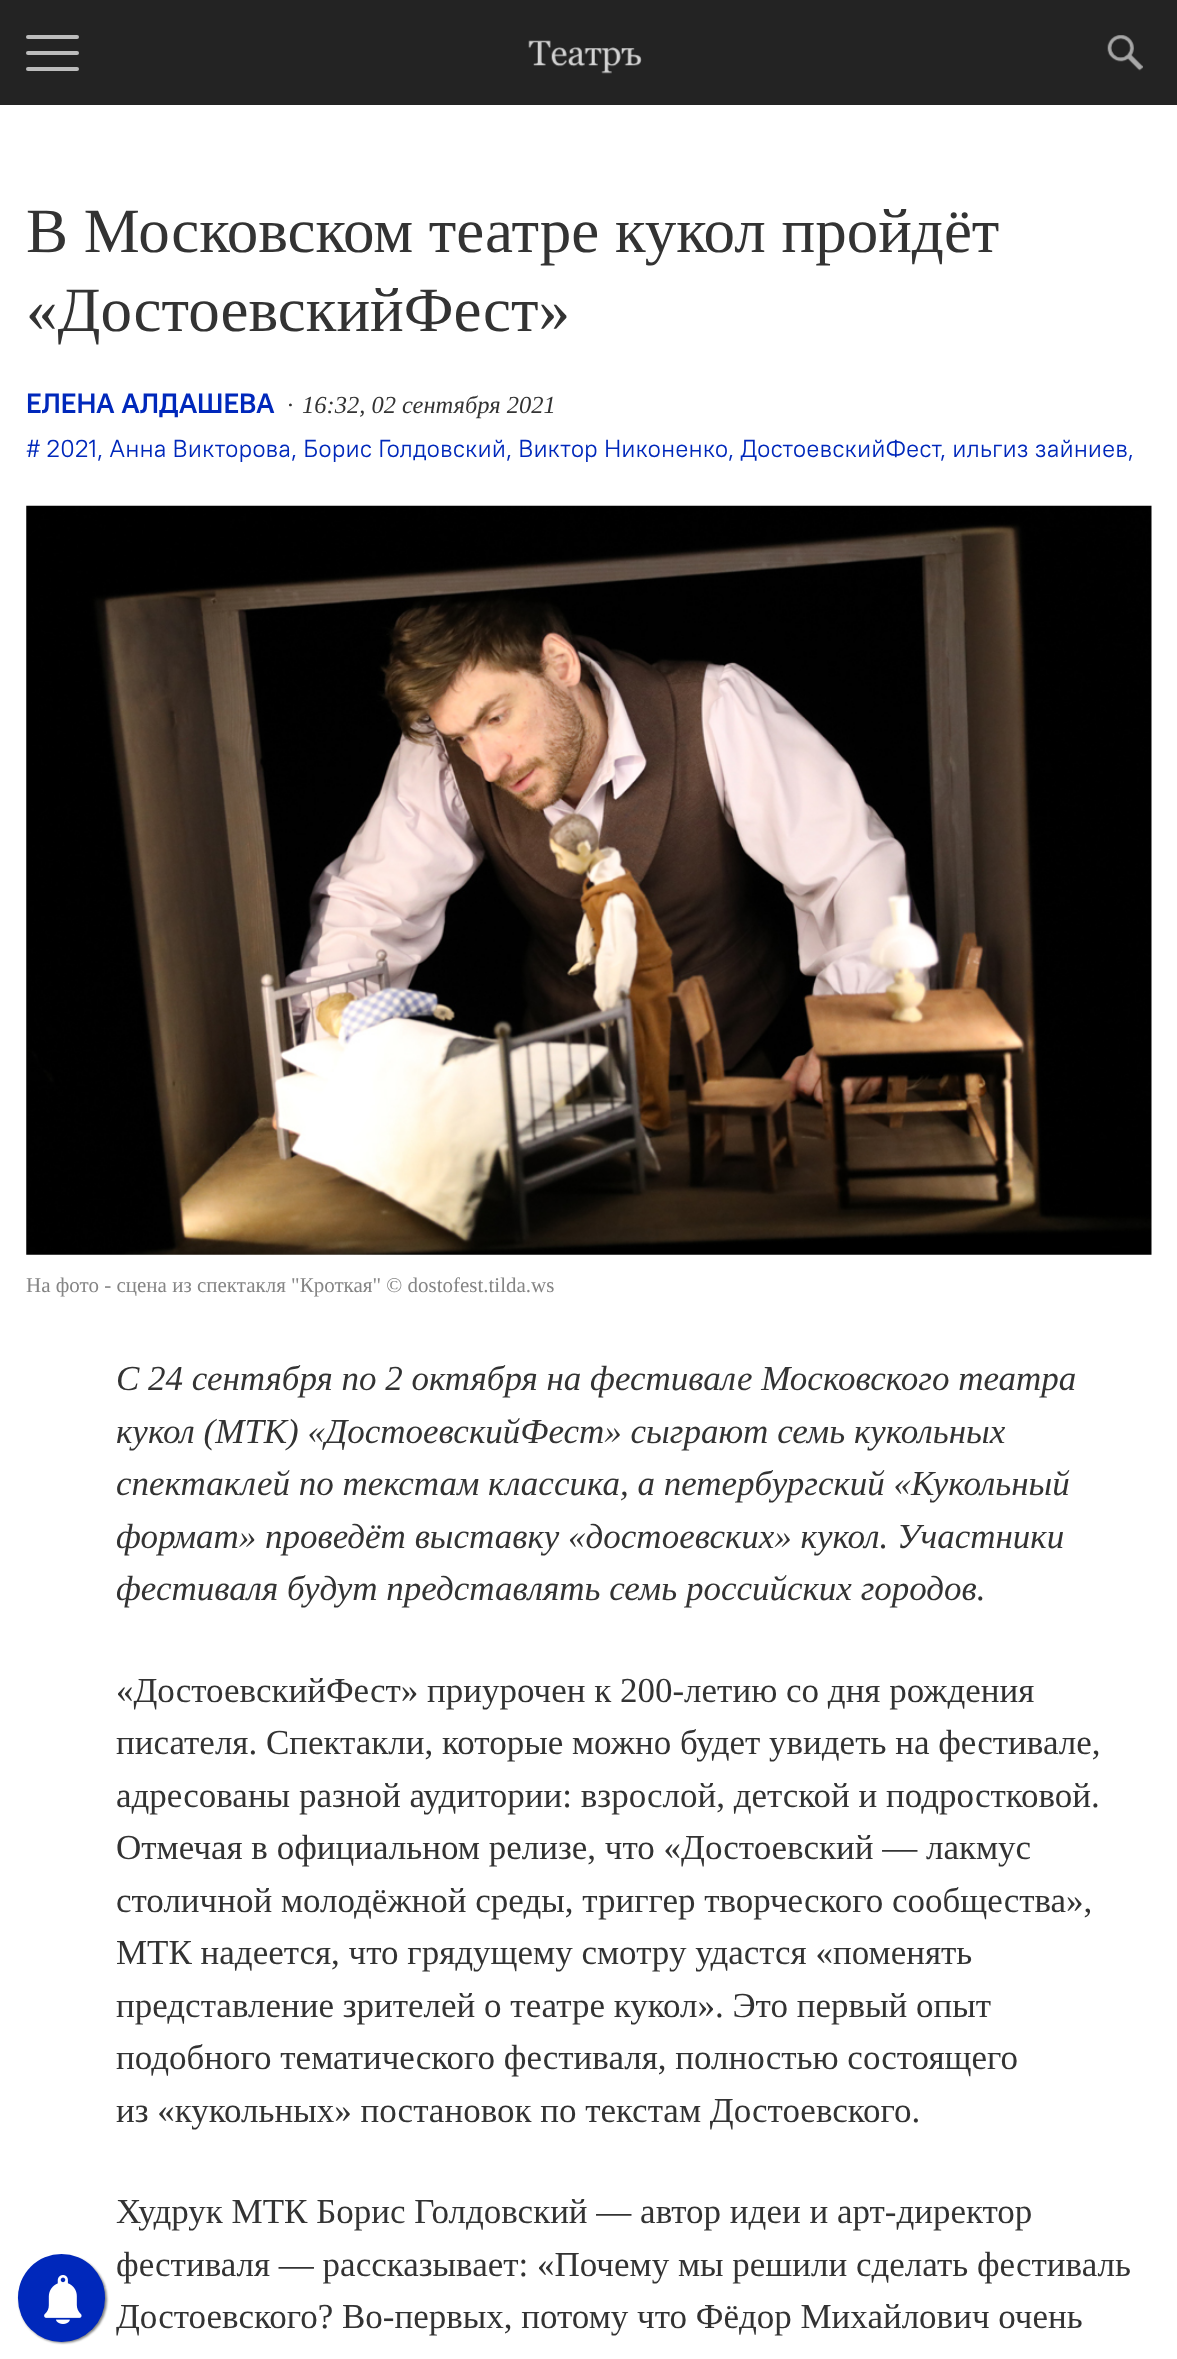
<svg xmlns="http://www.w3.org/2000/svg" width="1177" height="2359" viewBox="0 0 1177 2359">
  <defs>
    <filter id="blur1" x="-50%" y="-200%" width="200%" height="500%"><feGaussianBlur stdDeviation="1"/></filter>
  </defs>
  <rect width="100%" height="100%" fill="#ffffff"/>
  <rect x="0" y="0" width="1177" height="105" fill="#232323"/>
  <rect x="26" y="35" width="53" height="4" rx="2" fill="#bcbcbc"/>
  <rect x="26" y="51" width="53" height="4" rx="2" fill="#bcbcbc"/>
  <rect x="26" y="67" width="53" height="4" rx="2" fill="#bcbcbc"/>
  <image x="528" y="40" width="114" height="34" href="img1.png"/>
  <image x="1107" y="35" width="36" height="36" href="img2.png"/>
  <text x="26" y="252" font-family="Liberation Serif" font-size="63" fill="#333333">В Московском театре кукол пройдёт</text>
  <text x="26" y="331" font-family="Liberation Serif" font-size="63" fill="#333333">«ДостоевскийФест»</text>
  <text x="26" y="413" font-family="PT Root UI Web" font-size="28" font-weight="bold" fill="#0028bb">ЕЛЕНА АЛДАШЕВА</text>
  <text x="287" y="413" font-family="Liberation Serif" font-size="24.5" font-style="italic" fill="#333333">·</text>
  <text x="302" y="413" font-family="Liberation Serif" font-size="24.5" font-style="italic" fill="#333333">16:32, 02 сентября 2021</text>
  <text x="26" y="457" font-family="PT Root UI Web" font-size="24.5" fill="#0028bb"># 2021, Анна Викторова, Борис Голдовский, Виктор Никоненко</text>
  <text x="728" y="457" font-family="PT Root UI Web" font-size="24.5" fill="#0028bb">, ДостоевскийФест</text>
  <text x="940" y="457" font-family="PT Root UI Web" font-size="24.5" fill="#0028bb">, ильгиз зайниев,</text>
  <image x="26" y="505" width="1126" height="750" href="img3.png"/>
  <text x="26" y="1292" font-family="Liberation Serif" font-size="21" fill="#858585">На фото - сцена из спектакля "Кроткая" © dostofest.tilda.ws</text>
  <text x="116" y="1390" font-family="Liberation Serif" font-size="35" font-style="italic" fill="#333333">С 24 сентября по 2 октября на фестивале Московского театра</text>
  <text x="116" y="1443" font-family="Liberation Serif" font-size="35" font-style="italic" fill="#333333">кукол (МТК) «ДостоевскийФест» сыграют семь кукольных</text>
  <text x="116" y="1495" font-family="Liberation Serif" font-size="35" font-style="italic" fill="#333333">спектаклей по текстам классика, а петербургский «Кукольный</text>
  <text x="116" y="1548" font-family="Liberation Serif" font-size="35" font-style="italic" fill="#333333">формат» проведёт выставку «достоевских» кукол. Участники</text>
  <text x="116" y="1600" font-family="Liberation Serif" font-size="35" font-style="italic" fill="#333333">фестиваля будут представлять семь российских городов.</text>
  <text x="116" y="1702" font-family="Liberation Serif" font-size="35" fill="#333333">«ДостоевскийФест» приурочен к 200-летию со дня рождения</text>
  <text x="116" y="1754" font-family="Liberation Serif" font-size="35" fill="#333333">писателя. Спектакли, которые можно будет увидеть на фестивале,</text>
  <text x="116" y="1807" font-family="Liberation Serif" font-size="35" fill="#333333">адресованы разной аудитории: взрослой, детской и подростковой.</text>
  <text x="116" y="1859" font-family="Liberation Serif" font-size="35" fill="#333333">Отмечая в официальном релизе, что «Достоевский — лакмус</text>
  <text x="116" y="1912" font-family="Liberation Serif" font-size="35" fill="#333333">столичной молодёжной среды, триггер творческого сообщества»,</text>
  <text x="116" y="1964" font-family="Liberation Serif" font-size="35" fill="#333333">МТК надеется, что грядущему смотру удастся «поменять</text>
  <text x="116" y="2017" font-family="Liberation Serif" font-size="35" fill="#333333">представление зрителей о театре кукол». Это первый опыт</text>
  <text x="116" y="2069" font-family="Liberation Serif" font-size="35" fill="#333333">подобного тематического фестиваля, полностью состоящего</text>
  <text x="116" y="2122" font-family="Liberation Serif" font-size="35" fill="#333333">из «кукольных» постановок по текстам Достоевского.</text>
  <text x="116" y="2223" font-family="Liberation Serif" font-size="35" fill="#333333">Худрук МТК Борис Голдовский — автор идеи и арт-директор</text>
  <text x="116" y="2276" font-family="Liberation Serif" font-size="35" fill="#333333">фестиваля — рассказывает: «Почему мы решили сделать фестиваль</text>
  <text x="116" y="2328" font-family="Liberation Serif" font-size="35" fill="#333333">Достоевского? Во-первых, потому что Фёдор Михайлович очень</text>
  <rect x="19" y="2256" width="88" height="87" rx="43.5" fill="#000000" fill-opacity="0.5" filter="url(#blur1)"/>
  <rect x="18" y="2254" width="87" height="88" rx="43.5" fill="#0028bb"/>
  <image x="44" y="2275" width="38" height="49" href="img4.png"/>
</svg>
